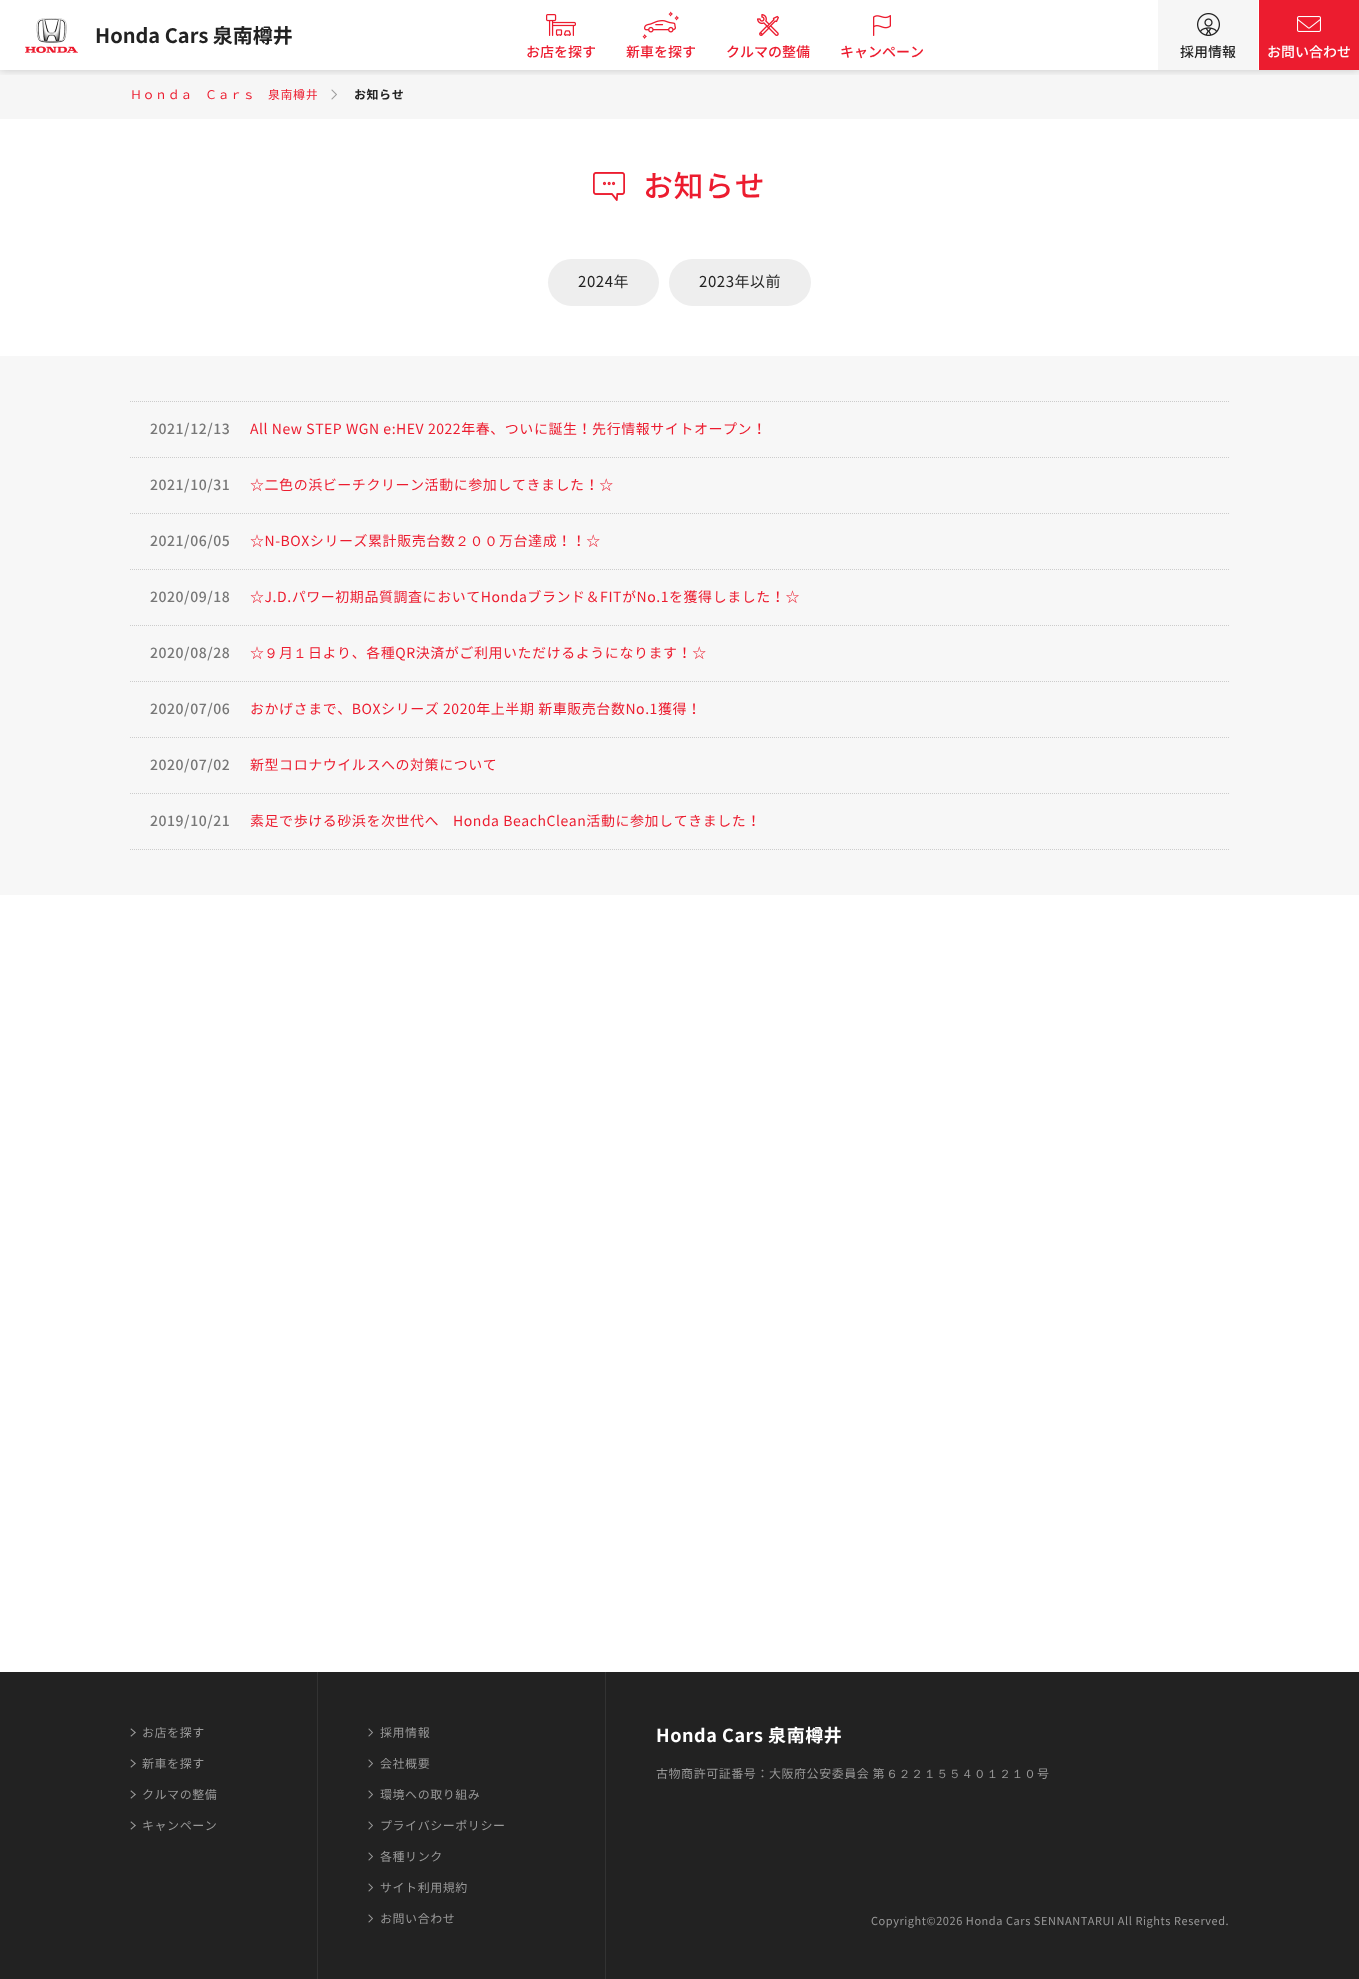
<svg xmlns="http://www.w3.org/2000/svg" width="1359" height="1979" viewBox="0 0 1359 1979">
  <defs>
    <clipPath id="clip1"><rect x="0" y="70" width="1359" height="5"/></clipPath>
    <filter id="blur1" x="-50%" y="-200%" width="200%" height="500%"><feGaussianBlur stdDeviation="4"/></filter>
  </defs>
  <rect width="100%" height="100%" fill="#ffffff"/>
  <rect x="0" y="70" width="1359" height="49" fill="#f6f6f6"/>
  <g clip-path="url(#clip1)">
    <rect x="0" y="0" width="1359" height="70" fill="#000000" fill-opacity="0.2" filter="url(#blur1)"/>
  </g>
  <image x="25" y="18" width="53" height="35" href="img1.png"/>
  <text x="95" y="43" font-family="Noto Sans CJK JP" font-size="20" font-weight="bold" fill="#222222">Honda Cars 泉南樽井</text>
  <image x="546" y="14" width="30" height="22" href="img2.png"/>
  <text x="526" y="57" font-family="Noto Sans CJK JP" font-size="14" font-weight="500" fill="#ec1c2f">お店を探す</text>
  <image x="642" y="11" width="37" height="28" href="img3.png"/>
  <text x="626" y="57" font-family="Noto Sans CJK JP" font-size="14" font-weight="500" fill="#ec1c2f">新車を探す</text>
  <image x="757" y="14" width="22" height="22" href="img4.png"/>
  <text x="726" y="57" font-family="Noto Sans CJK JP" font-size="14" font-weight="500" fill="#ec1c2f">クルマの整備</text>
  <image x="873" y="15" width="18" height="21" href="img5.png"/>
  <text x="840" y="57" font-family="Noto Sans CJK JP" font-size="14" font-weight="500" fill="#ec1c2f">キャンペーン</text>
  <rect x="1158" y="0" width="100" height="70" fill="#f6f6f6"/>
  <image x="1197" y="13" width="23" height="23" href="img6.png"/>
  <text x="1180" y="57" font-family="Noto Sans CJK JP" font-size="14" font-weight="500" fill="#222222">採用情報</text>
  <rect x="1259" y="0" width="100" height="70" fill="#ec1c2f"/>
  <image x="1297" y="16" width="24" height="16" href="img7.png"/>
  <text x="1267" y="57" font-family="Noto Sans CJK JP" font-size="14" font-weight="500" fill="#ffffff">お問い合わせ</text>
  <text x="130" y="99" font-family="Noto Sans CJK JP" font-size="12" letter-spacing="0.55" fill="#ec1c2f">Ｈｏｎｄａ</text>
  <text x="205" y="99" font-family="Noto Sans CJK JP" font-size="12" letter-spacing="0.55" fill="#ec1c2f">Ｃａｒｓ</text>
  <text x="268" y="99" font-family="Noto Sans CJK JP" font-size="12" letter-spacing="0.55" fill="#ec1c2f">泉南樽井</text>
  <image x="331" y="89" width="6" height="11" href="img8.png"/>
  <text x="354" y="99" font-family="Noto Sans CJK JP" font-size="12" font-weight="bold" letter-spacing="0.55" fill="#222222">お知らせ</text>
  <image x="593" y="172" width="32" height="29" href="img9.png"/>
  <text x="643" y="197" font-family="Noto Sans CJK JP" font-size="30" font-weight="500" letter-spacing="0.55" fill="#ec1c2f">お知らせ</text>
  <rect x="548" y="259" width="111" height="47" rx="23.5" fill="#eeeeee"/>
  <text x="578" y="287" font-family="Noto Sans CJK JP" font-size="15" letter-spacing="0.55" fill="#222222">2024年</text>
  <rect x="669" y="259" width="142" height="47" rx="23.5" fill="#eeeeee"/>
  <text x="699" y="287" font-family="Noto Sans CJK JP" font-size="15" letter-spacing="0.55" fill="#222222">2023年以前</text>
  <rect x="0" y="356" width="1359" height="539" fill="#f7f7f7"/>
  <path d="M130 401.5H1230" fill="none" stroke="#cccccc" stroke-dasharray="1 1"/>
  <path d="M130 457.5H1230" fill="none" stroke="#cccccc" stroke-dasharray="1 1"/>
  <text x="150" y="434" font-family="Noto Sans CJK JP" font-size="14" font-weight="500" letter-spacing="0.55" fill="#777777">2021/12/13</text>
  <text x="250" y="434" font-family="Noto Sans CJK JP" font-size="14" letter-spacing="0.55" fill="#ec1c2f">All New STEP WGN e:HEV 2022年春、ついに誕生！先行情報サイトオープン！</text>
  <path d="M130 513.5H1230" fill="none" stroke="#cccccc" stroke-dasharray="1 1"/>
  <text x="150" y="490" font-family="Noto Sans CJK JP" font-size="14" font-weight="500" letter-spacing="0.55" fill="#777777">2021/10/31</text>
  <text x="250" y="490" font-family="Noto Sans CJK JP" font-size="14" letter-spacing="0.55" fill="#ec1c2f">☆二色の浜ビーチクリーン活動に参加してきました！☆</text>
  <path d="M130 569.5H1230" fill="none" stroke="#cccccc" stroke-dasharray="1 1"/>
  <text x="150" y="546" font-family="Noto Sans CJK JP" font-size="14" font-weight="500" letter-spacing="0.55" fill="#777777">2021/06/05</text>
  <text x="250" y="546" font-family="Noto Sans CJK JP" font-size="14" letter-spacing="0.55" fill="#ec1c2f">☆N-BOXシリーズ累計販売台数</text>
  <text x="455" y="546" font-family="WenQuanYi Zen Hei" font-size="14" font-weight="500" letter-spacing="0.55" fill="#ec1c2f">２００</text>
  <text x="499" y="546" font-family="Noto Sans CJK JP" font-size="14" letter-spacing="0.55" fill="#ec1c2f">万台達成！！☆</text>
  <path d="M130 625.5H1230" fill="none" stroke="#cccccc" stroke-dasharray="1 1"/>
  <text x="150" y="602" font-family="Noto Sans CJK JP" font-size="14" font-weight="500" letter-spacing="0.55" fill="#777777">2020/09/18</text>
  <text x="250" y="602" font-family="Noto Sans CJK JP" font-size="14" letter-spacing="0.55" fill="#ec1c2f">☆J.D.パワー初期品質調査においてHondaブランド＆FITがNo.1を獲得しました！☆</text>
  <path d="M130 681.5H1230" fill="none" stroke="#cccccc" stroke-dasharray="1 1"/>
  <text x="150" y="658" font-family="Noto Sans CJK JP" font-size="14" font-weight="500" letter-spacing="0.55" fill="#777777">2020/08/28</text>
  <text x="250" y="658" font-family="Noto Sans CJK JP" font-size="14" letter-spacing="0.55" fill="#ec1c2f">☆</text>
  <text x="264" y="658" font-family="WenQuanYi Zen Hei" font-size="14" font-weight="500" letter-spacing="0.55" fill="#ec1c2f">９</text>
  <text x="279" y="658" font-family="Noto Sans CJK JP" font-size="14" letter-spacing="0.55" fill="#ec1c2f">月</text>
  <text x="293" y="658" font-family="WenQuanYi Zen Hei" font-size="14" font-weight="500" letter-spacing="0.55" fill="#ec1c2f">１</text>
  <text x="308" y="658" font-family="Noto Sans CJK JP" font-size="14" letter-spacing="0.55" fill="#ec1c2f">日より、各種QR決済がご利用いただけるようになります！☆</text>
  <path d="M130 737.5H1230" fill="none" stroke="#cccccc" stroke-dasharray="1 1"/>
  <text x="150" y="714" font-family="Noto Sans CJK JP" font-size="14" font-weight="500" letter-spacing="0.55" fill="#777777">2020/07/06</text>
  <text x="250" y="714" font-family="Noto Sans CJK JP" font-size="14" letter-spacing="0.55" fill="#ec1c2f">おかげさまで、BOXシリーズ 2020年上半期 新車販売台数No.1獲得！</text>
  <path d="M130 793.5H1230" fill="none" stroke="#cccccc" stroke-dasharray="1 1"/>
  <text x="150" y="770" font-family="Noto Sans CJK JP" font-size="14" font-weight="500" letter-spacing="0.55" fill="#777777">2020/07/02</text>
  <text x="250" y="770" font-family="Noto Sans CJK JP" font-size="14" letter-spacing="0.55" fill="#ec1c2f">新型コロナウイルスへの対策について</text>
  <path d="M130 849.5H1230" fill="none" stroke="#cccccc" stroke-dasharray="1 1"/>
  <text x="150" y="826" font-family="Noto Sans CJK JP" font-size="14" font-weight="500" letter-spacing="0.55" fill="#777777">2019/10/21</text>
  <text x="250" y="826" font-family="Noto Sans CJK JP" font-size="14" letter-spacing="0.55" fill="#ec1c2f">素足で歩ける砂浜を次世代へ</text>
  <text x="453" y="826" font-family="Noto Sans CJK JP" font-size="14" letter-spacing="0.55" fill="#ec1c2f">Honda BeachClean活動に参加してきました！</text>
  <rect x="0" y="1672" width="1359" height="307" fill="#222222"/>
  <rect x="317" y="1672" width="1" height="307" fill="#333333"/>
  <image x="130" y="1728" width="6" height="9" href="img10.png"/>
  <text x="142" y="1737" font-family="Noto Sans CJK JP" font-size="12" letter-spacing="0.55" fill="#999999">お店を探す</text>
  <image x="130" y="1759" width="6" height="9" href="img10.png"/>
  <text x="142" y="1768" font-family="Noto Sans CJK JP" font-size="12" letter-spacing="0.55" fill="#999999">新車を探す</text>
  <image x="130" y="1790" width="6" height="9" href="img10.png"/>
  <text x="142" y="1799" font-family="Noto Sans CJK JP" font-size="12" letter-spacing="0.55" fill="#999999">クルマの整備</text>
  <image x="130" y="1821" width="6" height="9" href="img10.png"/>
  <text x="142" y="1830" font-family="Noto Sans CJK JP" font-size="12" letter-spacing="0.55" fill="#999999">キャンペーン</text>
  <rect x="605" y="1672" width="1" height="307" fill="#333333"/>
  <image x="368" y="1728" width="5" height="9" href="img11.png"/>
  <text x="380" y="1737" font-family="Noto Sans CJK JP" font-size="12" letter-spacing="0.55" fill="#999999">採用情報</text>
  <image x="368" y="1759" width="5" height="9" href="img11.png"/>
  <text x="380" y="1768" font-family="Noto Sans CJK JP" font-size="12" letter-spacing="0.55" fill="#999999">会社概要</text>
  <image x="368" y="1790" width="5" height="9" href="img11.png"/>
  <text x="380" y="1799" font-family="Noto Sans CJK JP" font-size="12" letter-spacing="0.55" fill="#999999">環境への取り組み</text>
  <image x="368" y="1821" width="5" height="9" href="img11.png"/>
  <text x="380" y="1830" font-family="Noto Sans CJK JP" font-size="12" letter-spacing="0.55" fill="#999999">プライバシーポリシー</text>
  <image x="368" y="1852" width="5" height="9" href="img11.png"/>
  <text x="380" y="1861" font-family="Noto Sans CJK JP" font-size="12" letter-spacing="0.55" fill="#999999">各種リンク</text>
  <image x="368" y="1883" width="5" height="9" href="img11.png"/>
  <text x="380" y="1892" font-family="Noto Sans CJK JP" font-size="12" letter-spacing="0.55" fill="#999999">サイト利用規約</text>
  <image x="368" y="1914" width="5" height="9" href="img11.png"/>
  <text x="380" y="1923" font-family="Noto Sans CJK JP" font-size="12" letter-spacing="0.55" fill="#999999">お問い合わせ</text>
  <text x="656" y="1742" font-family="Noto Sans CJK JP" font-size="18" font-weight="bold" letter-spacing="0.55" fill="#ffffff">Honda Cars 泉南樽井</text>
  <text x="656" y="1778" font-family="Noto Sans CJK JP" font-size="12" letter-spacing="0.55" fill="#999999">古物商許可証番号：大阪府公安委員会 第</text>
  <text x="886" y="1778" font-family="WenQuanYi Zen Hei" font-size="12" font-weight="500" letter-spacing="0.55" fill="#999999">６２２１５５４０１２１０</text>
  <text x="1037" y="1778" font-family="Noto Sans CJK JP" font-size="12" letter-spacing="0.55" fill="#999999">号</text>
  <text x="871" y="1925" font-family="Noto Sans CJK JP" font-size="11" letter-spacing="0.55" fill="#999999">Copyright©2026 Honda Cars SENNANTARUI All Rights Reserved.</text>
</svg>
